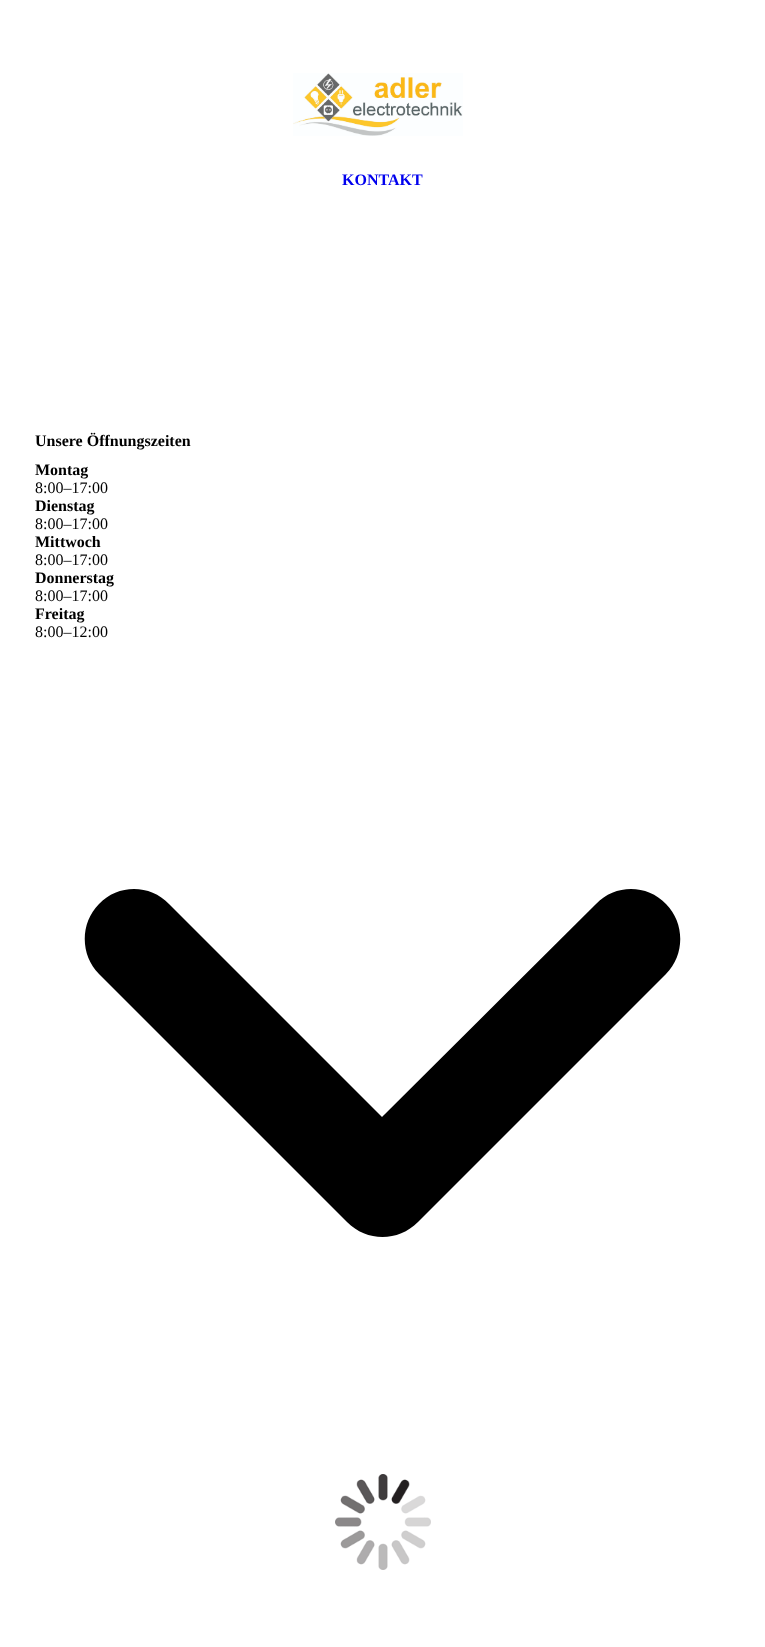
<svg xmlns="http://www.w3.org/2000/svg" width="765" height="1647" viewBox="0 0 765 1647">
  <rect width="100%" height="100%" fill="#ffffff"/>
  <image x="293" y="73" width="170" height="63" href="img1.png"/>
  <text x="342" y="185" font-family="Liberation Serif" font-size="16" font-weight="bold" fill="#0000ee">KONTAKT</text>
  <text x="35" y="446" font-family="Liberation Serif" font-size="16" font-weight="bold" fill="#000000">Unsere Öffnungszeiten</text>
  <text x="35" y="475" font-family="Liberation Serif" font-size="16" font-weight="bold" fill="#000000">Montag</text>
  <text x="35" y="493" font-family="Liberation Serif" font-size="16" fill="#000000">8:00–17:00</text>
  <text x="35" y="511" font-family="Liberation Serif" font-size="16" font-weight="bold" fill="#000000">Dienstag</text>
  <text x="35" y="529" font-family="Liberation Serif" font-size="16" fill="#000000">8:00–17:00</text>
  <text x="35" y="547" font-family="Liberation Serif" font-size="16" font-weight="bold" fill="#000000">Mittwoch</text>
  <text x="35" y="565" font-family="Liberation Serif" font-size="16" fill="#000000">8:00–17:00</text>
  <text x="35" y="583" font-family="Liberation Serif" font-size="16" font-weight="bold" fill="#000000">Donnerstag</text>
  <text x="35" y="601" font-family="Liberation Serif" font-size="16" fill="#000000">8:00–17:00</text>
  <text x="35" y="619" font-family="Liberation Serif" font-size="16" font-weight="bold" fill="#000000">Freitag</text>
  <text x="35" y="637" font-family="Liberation Serif" font-size="16" fill="#000000">8:00–12:00</text>
  <path d="M347 1222C367 1242 398 1242 418 1222L666 974C685 955 685 923 666 904C647 884 615 884 596 904L382 1117L169 904C150 884 118 884 99 904C80 923 80 955 99 974Z" fill="#000000"/>
  <image x="335" y="1474" width="96" height="96" href="img2.png"/>
</svg>
